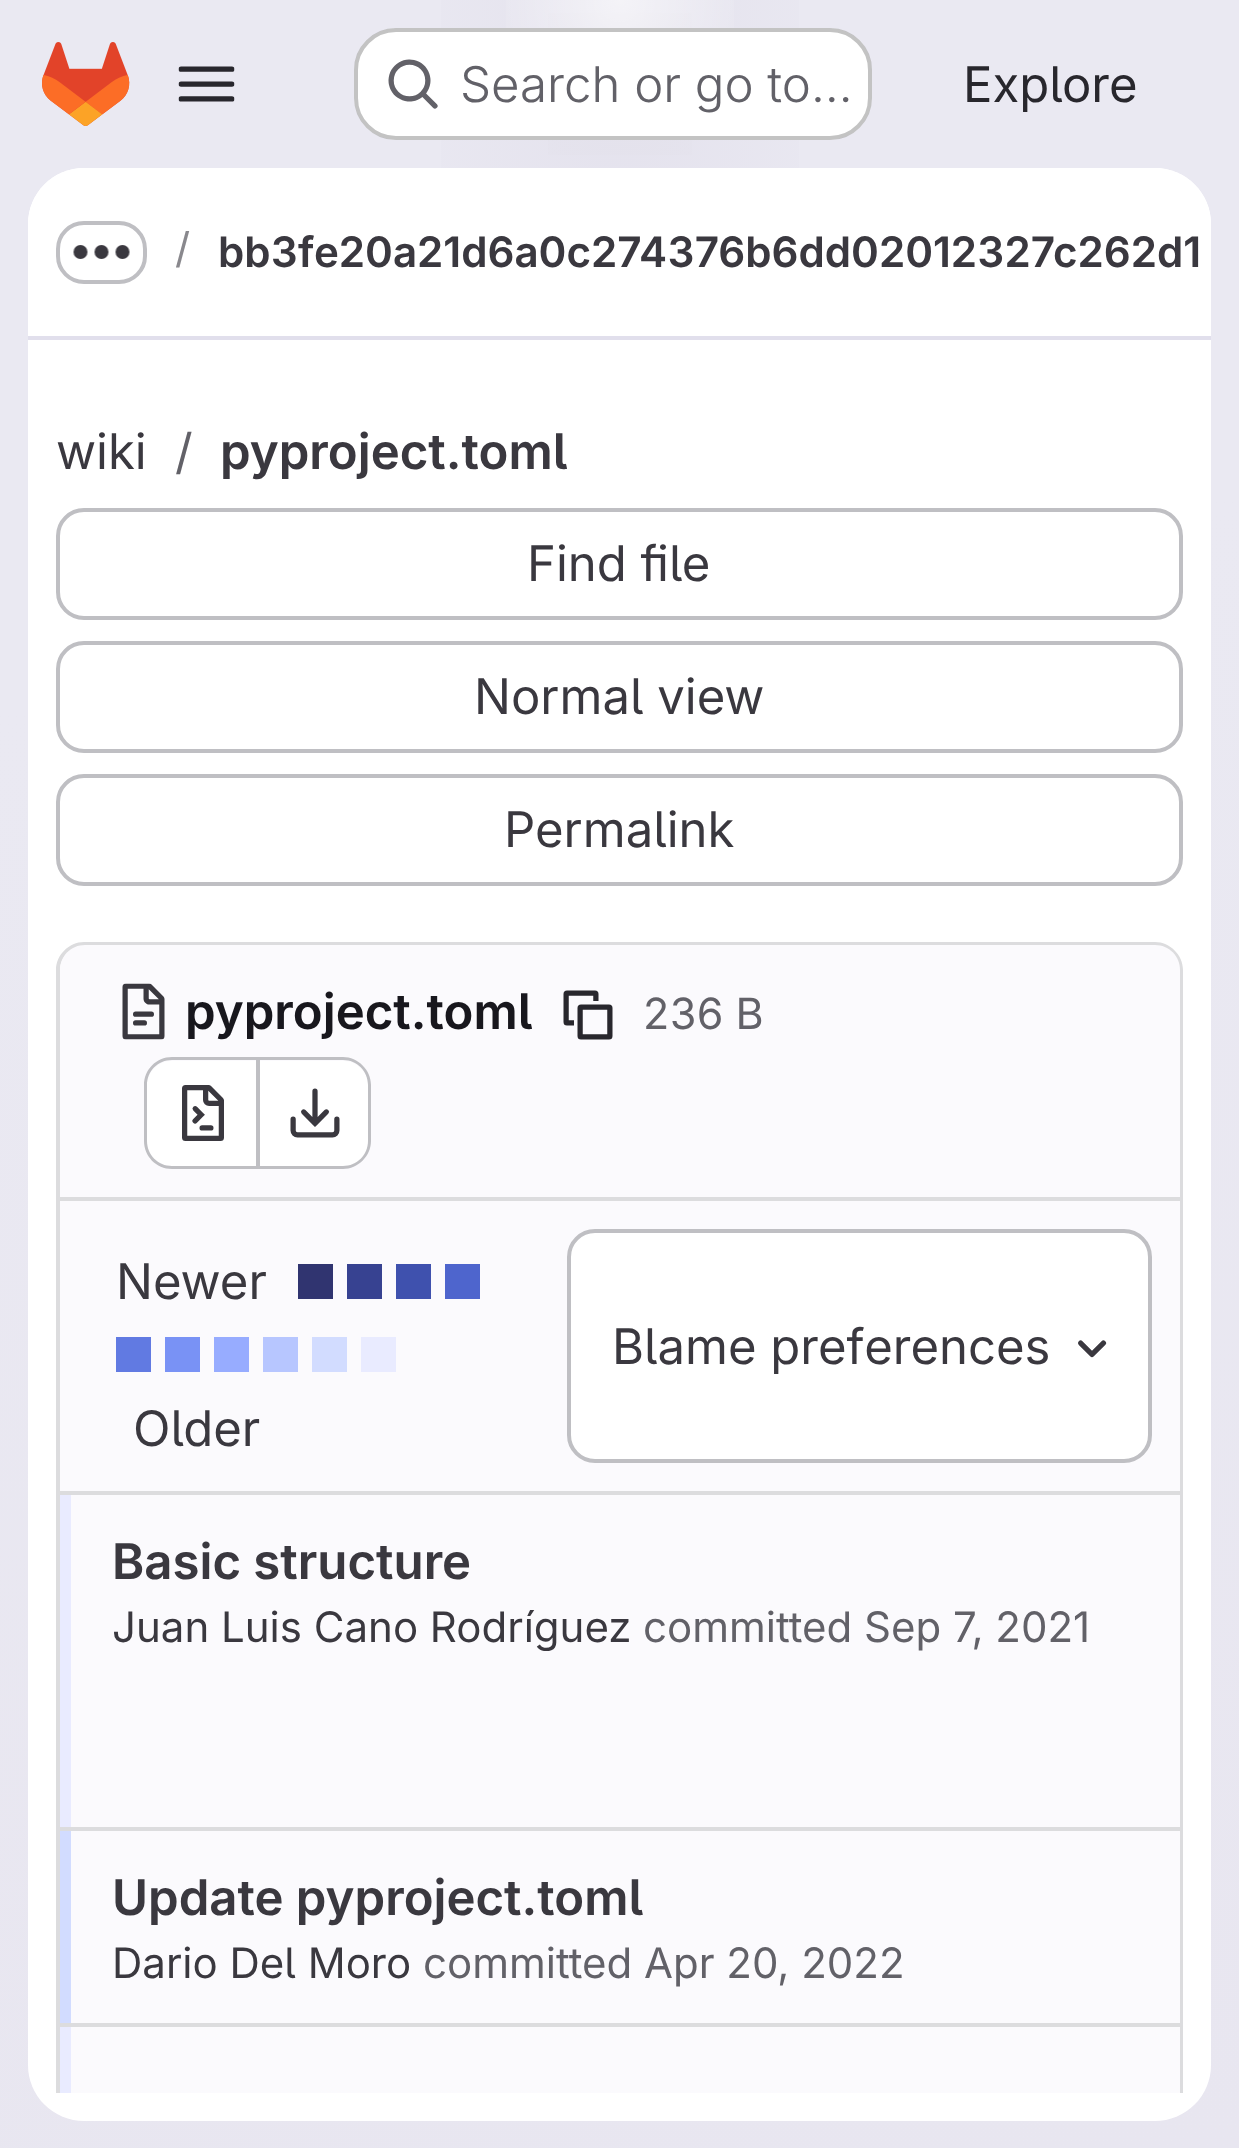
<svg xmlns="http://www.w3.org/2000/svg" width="1239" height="2148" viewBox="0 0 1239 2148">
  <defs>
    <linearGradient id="g1" gradientUnits="userSpaceOnUse" x1="822" y1="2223" x2="417" y2="-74"><stop offset="0" stop-color="#e8e6f0"/><stop offset="0.7" stop-color="#eae9f2"/></linearGradient>
    <radialGradient id="g2" gradientUnits="userSpaceOnUse" cx="0" cy="0" r="1" gradientTransform="matrix(620 0 0 2149 620 0)"><stop offset="0" stop-color="#e4e2ed"/><stop offset="0.4" stop-color="#e4e2ed" stop-opacity="0"/></radialGradient>
    <radialGradient id="g3" gradientUnits="userSpaceOnUse" cx="0" cy="0" r="1" gradientTransform="matrix(620 0 0 2149 620 0)"><stop offset="0" stop-color="#e4e2ec"/><stop offset="0.28" stop-color="#e4e2ec" stop-opacity="0"/></radialGradient>
    <radialGradient id="g4" gradientUnits="userSpaceOnUse" cx="620" cy="0" r="2237"><stop offset="0" stop-color="#ffffff" stop-opacity="0.6"/><stop offset="0.06" stop-color="#ffffff" stop-opacity="0"/></radialGradient>
    <clipPath id="clip1"><rect x="28" y="340" width="1183" height="1753"/></clipPath>
    <clipPath id="clip2"><rect x="60" y="1495" width="1120" height="598"/></clipPath>
  </defs>
  <rect width="100%" height="100%" fill="#ffffff"/>
  <rect x="0" y="0" width="1239" height="2148" fill="url(#g1)"/>
  <rect x="441" y="0" width="358" height="168" fill="url(#g2)"/>
  <rect x="548" y="13" width="144" height="142" fill="url(#g3)"/>
  <rect x="506" y="0" width="228" height="28" fill="url(#g4)"/>
  <image x="42" y="42" width="88" height="84" href="img1.png"/>
  <image x="178" y="66" width="57" height="36" href="img2.png"/>
  <rect x="354" y="28" width="518" height="112" rx="42" fill="#ffffff"/>
  <rect x="356" y="30" width="514" height="108" rx="40" fill="none" stroke="#050506" stroke-opacity="0.24" stroke-width="4"/>
  <image x="388" y="59" width="50" height="50" href="img3.png"/>
  <text x="460" y="102" font-family="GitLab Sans" font-size="49" font-weight="300" fill="#626168">Search or go to…</text>
  <text x="963" y="102" font-family="GitLab Sans" font-size="49" fill="#28272d">Explore</text>
  <rect x="28" y="168" width="1183" height="1953" rx="56" fill="#ffffff"/>
  <path d="M84 168H1155C1186 168 1211 193 1211 224V340H28V224C28 193 53 168 84 168Z" fill="#ffffff"/>
  <rect x="28" y="336" width="1183" height="4" fill="#e1dfec"/>
  <rect x="58" y="223" width="87" height="59" rx="26" fill="none" stroke="#bfbfc3" stroke-width="4"/>
  <image x="73" y="245" width="57" height="14" href="img4.png"/>
  <text x="175" y="263" font-family="GitLab Sans" font-size="42" fill="#89888d">/</text>
  <text x="218" y="267" font-family="GitLab Sans" font-size="42" font-weight="600" fill="#3a383f">bb3fe20a21d6a0c274376b6dd02012327c262d1</text>
  <text x="56" y="469" font-family="GitLab Sans" font-size="49" fill="#3a383f">wiki</text>
  <text x="175" y="469" font-family="GitLab Sans" font-size="49" fill="#626168">/</text>
  <text x="220" y="469" font-family="GitLab Sans" font-size="49" font-weight="600" fill="#3a383f">pyproject.toml</text>
  <rect x="58" y="510" width="1123" height="108" rx="26" fill="none" stroke="#bfbfc3" stroke-width="4"/>
  <text x="527" y="581" font-family="GitLab Sans" font-size="49" fill="#3a383f">Find file</text>
  <rect x="58" y="643" width="1123" height="108" rx="26" fill="none" stroke="#bfbfc3" stroke-width="4"/>
  <text x="474" y="714" font-family="GitLab Sans" font-size="49" fill="#3a383f">Normal view</text>
  <rect x="58" y="776" width="1123" height="108" rx="26" fill="none" stroke="#bfbfc3" stroke-width="4"/>
  <text x="504" y="847" font-family="GitLab Sans" font-size="49" fill="#3a383f">Permalink</text>
  <g clip-path="url(#clip1)">
    <path d="M84 942C69 942 56 955 56 970V2114L60 2116V970C60 957 71 946 84 946H1155C1168 946 1179 957 1179 970V2116L1183 2114V970C1183 955 1170 942 1155 942Z" fill="#dcdcde"/>
  </g>
  <path d="M85 945H1155C1169 945 1180 956 1180 970V1201H60V970C60 956 71 945 85 945Z" fill="#fbfafd"/>
  <rect x="60" y="1197" width="1120" height="4" fill="#dcdcde"/>
  <image x="122" y="983" width="43" height="57" href="img5.png"/>
  <text x="185" y="1029" font-family="GitLab Sans" font-size="49" font-weight="600" fill="#18171d">pyproject.toml</text>
  <image x="563" y="990" width="50" height="50" href="img6.png"/>
  <text x="643" y="1029" font-family="GitLab Sans" font-size="43" fill="#626168">236 B</text>
  <path d="M172 1061H256V1166H172C158 1166 147 1155 147 1141V1086C147 1072 158 1061 172 1061Z" fill="#ffffff"/>
  <path d="M172 1057H256V1169H172C156 1169 144 1156 144 1141V1085C144 1070 156 1057 172 1057ZM172 1060H256V1166H172C158 1166 147 1155 147 1141V1085C147 1071 158 1060 172 1060Z" fill="#bfbfc3" fill-rule="evenodd"/>
  <image x="182" y="1085" width="42" height="56" href="img7.png"/>
  <path d="M259 1061H343C357 1061 368 1072 368 1086V1141C368 1155 357 1166 343 1166H259Z" fill="#ffffff"/>
  <path d="M259 1057H343C358 1057 371 1070 371 1085V1141C371 1156 358 1169 343 1169H259ZM259 1060H343C357 1060 368 1071 368 1085V1141C368 1155 357 1166 343 1166H259Z" fill="#bfbfc3" fill-rule="evenodd"/>
  <rect x="256" y="1057" width="4" height="112" fill="#bfbfc3"/>
  <image x="290" y="1088" width="50" height="50" href="img8.png"/>
  <rect x="60" y="1201" width="1120" height="290" fill="#fbfafd"/>
  <rect x="60" y="1491" width="1120" height="4" fill="#dcdcde"/>
  <text x="116" y="1299" font-family="GitLab Sans" font-size="49" fill="#3a383f">Newer</text>
  <rect x="298" y="1264" width="35" height="35" fill="#303470"/>
  <rect x="347" y="1264" width="35" height="35" fill="#374291"/>
  <rect x="396" y="1264" width="35" height="35" fill="#3f51ae"/>
  <rect x="445" y="1264" width="35" height="35" fill="#4e65cd"/>
  <rect x="116" y="1337" width="35" height="35" fill="#617ae2"/>
  <rect x="165" y="1337" width="35" height="35" fill="#7992f5"/>
  <rect x="214" y="1337" width="35" height="35" fill="#97acff"/>
  <rect x="263" y="1337" width="35" height="35" fill="#b7c6ff"/>
  <rect x="312" y="1337" width="35" height="35" fill="#d2dcff"/>
  <rect x="361" y="1337" width="35" height="35" fill="#e9ebff"/>
  <text x="133" y="1446" font-family="GitLab Sans" font-size="49" fill="#3a383f">Older</text>
  <rect x="569" y="1231" width="581" height="230" rx="26" fill="#ffffff" stroke="#bfbfc3" stroke-width="4"/>
  <text x="612" y="1364" font-family="GitLab Sans" font-size="49" fill="#3a383f">Blame preferences</text>
  <image x="1078" y="1340" width="29" height="18" href="img9.png"/>
  <rect x="60" y="1827" width="1120" height="4" fill="#dcdcde"/>
  <rect x="71" y="1495" width="1109" height="332" fill="#fbfafd"/>
  <rect x="60" y="1495" width="11" height="332" fill="#e9ebff"/>
  <text x="112" y="1579" font-family="GitLab Sans" font-size="49" font-weight="600" fill="#3a383f">Basic structure</text>
  <text x="112" y="1642" font-family="GitLab Sans" font-size="42" fill="#3a383f">Juan Luis Cano Rodríguez</text>
  <text x="643" y="1642" font-family="GitLab Sans" font-size="42" fill="#626168">committed Sep 7, 2021</text>
  <rect x="60" y="2023" width="1120" height="4" fill="#dcdcde"/>
  <rect x="71" y="1831" width="1109" height="192" fill="#fbfafd"/>
  <rect x="60" y="1831" width="11" height="192" fill="#d2dcff"/>
  <text x="112" y="1915" font-family="GitLab Sans" font-size="49" font-weight="600" fill="#3a383f">Update pyproject.toml</text>
  <text x="112" y="1978" font-family="GitLab Sans" font-size="42" fill="#3a383f">Dario Del Moro</text>
  <text x="423" y="1978" font-family="GitLab Sans" font-size="42" fill="#626168">committed Apr 20, 2022</text>
  <g clip-path="url(#clip2)">
    <path d="M60 2027H1211V2065C1211 2096 1186 2121 1155 2121H60Z" fill="#fbfafd"/>
  </g>
  <rect x="60" y="2027" width="11" height="66" fill="#e9ebff"/>
</svg>
